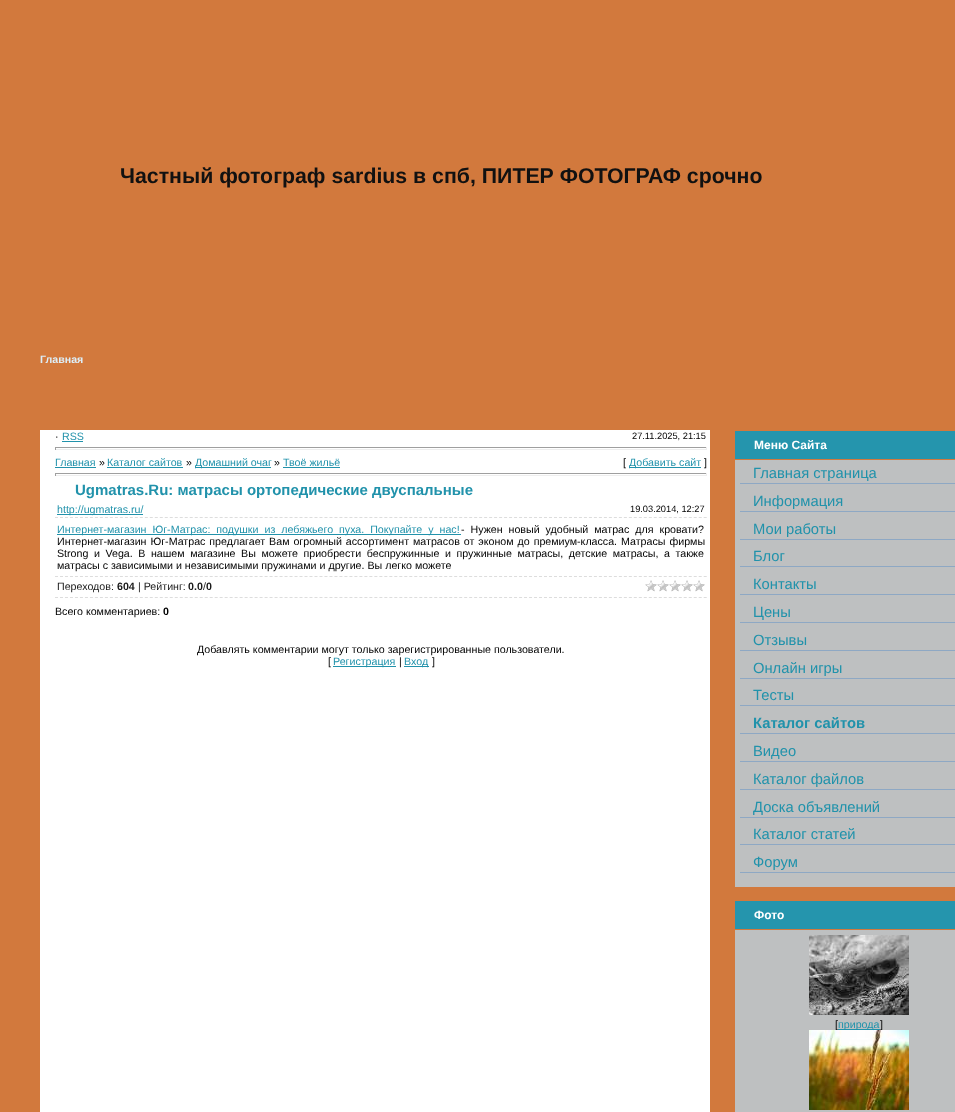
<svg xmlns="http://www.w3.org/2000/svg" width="955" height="1112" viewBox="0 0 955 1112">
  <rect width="100%" height="100%" fill="#d2793d"/>
  <text x="120" y="183" font-family="Liberation Sans" font-size="21.3" font-weight="bold" fill="#111111">Частный фотограф sardius в спб, ПИТЕР ФОТОГРАФ срочно</text>
  <text x="40" y="363" font-family="Liberation Sans" font-size="10.67" font-weight="bold" fill="#ddeef7">Главная</text>
  <rect x="40" y="430" width="670" height="682" fill="#ffffff"/>
  <text x="55" y="440" font-family="Liberation Sans" font-size="10.67" fill="#000000">·</text>
  <text x="62" y="440" font-family="Liberation Sans" font-size="10.67" fill="#2192ab">RSS</text>
  <rect x="62" y="441" width="21" height="1" fill="#2192ab"/>
  <text x="632" y="439" font-family="Liberation Sans" font-size="9.25" fill="#000000">27.11.2025, 21:15</text>
  <rect x="55" y="447" width="652" height="1" fill="#9f9f9f"/>
  <rect x="706" y="447" width="1" height="3" fill="#eeeeee"/>
  <rect x="55" y="449" width="652" height="1" fill="#eeeeee"/>
  <rect x="55" y="447" width="1" height="3" fill="#9f9f9f"/>
  <text x="55" y="466" font-family="Liberation Sans" font-size="10.67" fill="#2192ab">Главная</text>
  <rect x="55" y="467" width="41" height="1" fill="#2192ab"/>
  <text x="99" y="466" font-family="Liberation Sans" font-size="10.67" fill="#000000">»</text>
  <text x="107" y="466" font-family="Liberation Sans" font-size="10.67" fill="#2192ab">Каталог сайтов</text>
  <rect x="107" y="467" width="76" height="1" fill="#2192ab"/>
  <text x="186" y="466" font-family="Liberation Sans" font-size="10.67" fill="#000000">»</text>
  <rect x="195" y="467" width="76" height="1" fill="#2192ab"/>
  <text x="195" y="466" font-family="Liberation Sans" font-size="10.67" fill="#2192ab">Домашний очаг</text>
  <text x="274" y="466" font-family="Liberation Sans" font-size="10.67" fill="#000000">»</text>
  <text x="283" y="466" font-family="Liberation Sans" font-size="10.67" fill="#2192ab">Твоё жильё</text>
  <rect x="283" y="467" width="57" height="1" fill="#2192ab"/>
  <text x="623" y="466" font-family="Liberation Sans" font-size="10.67" fill="#000000">[</text>
  <rect x="629" y="467" width="72" height="1" fill="#2192ab"/>
  <text x="629" y="466" font-family="Liberation Sans" font-size="10.67" fill="#2192ab">Добавить сайт</text>
  <text x="704" y="466" font-family="Liberation Sans" font-size="10.67" fill="#000000">]</text>
  <rect x="55" y="473" width="652" height="1" fill="#9f9f9f"/>
  <rect x="706" y="473" width="1" height="3" fill="#eeeeee"/>
  <rect x="55" y="475" width="652" height="1" fill="#eeeeee"/>
  <rect x="55" y="473" width="1" height="3" fill="#9f9f9f"/>
  <text x="75" y="495" font-family="Liberation Sans" font-size="15" font-weight="bold" fill="#2192ab">Ugmatras.Ru: матрасы ортопедические двуспальные</text>
  <rect x="57" y="514" width="86" height="1" fill="#2192ab"/>
  <text x="57" y="513" font-family="Liberation Sans" font-size="10.67" fill="#2192ab">http://ugmatras.ru/</text>
  <text x="630" y="512" font-family="Liberation Sans" font-size="9.25" fill="#000000">19.03.2014, 12:27</text>
  <path d="M55 517.5H707" fill="none" stroke="#dddddd" stroke-dasharray="3 1.99"/>
  <rect x="57" y="534" width="404" height="1" fill="#2192ab"/>
  <text x="57" y="533" word-spacing="3" font-family="Liberation Sans" font-size="10.67" fill="#2192ab">Интернет-магазин Юг-Матрас: подушки из лебяжьего пуха. Покупайте у нас!</text>
  <text x="461" y="533" word-spacing="3" font-family="Liberation Sans" font-size="10.67" fill="#000000">- Нужен новый удобный матрас для кровати?</text>
  <text x="57" y="545" word-spacing="1" font-family="Liberation Sans" font-size="10.67" fill="#000000">Интернет-магазин Юг-Матрас предлагает Вам огромный ассортимент матрасов от эконом до премиум-класса. Матрасы фирмы</text>
  <text x="57" y="557" word-spacing="2.6" font-family="Liberation Sans" font-size="10.67" fill="#000000">Strong и Vega. В нашем магазине Вы можете приобрести беспружинные и пружинные матрасы, детские матрасы, а также</text>
  <text x="57" y="569" font-family="Liberation Sans" font-size="10.67" fill="#000000">матрасы с зависимыми и независимыми пружинами и другие. Вы легко можете</text>
  <path d="M55 576.5H707" fill="none" stroke="#dddddd" stroke-dasharray="3 1.99"/>
  <path d="M55 597.5H707" fill="none" stroke="#dddddd" stroke-dasharray="3 1.99"/>
  <text x="57" y="590" font-family="Liberation Sans" font-size="10.67" fill="#1a1a1a">Переходов:</text>
  <text x="117" y="590" font-family="Liberation Sans" font-size="10.67" font-weight="bold" fill="#1a1a1a">604</text>
  <text x="138" y="590" font-family="Liberation Sans" font-size="10.67" fill="#1a1a1a">| Рейтинг:</text>
  <text x="188" y="590" font-family="Liberation Sans" font-size="10.67" font-weight="bold" fill="#1a1a1a">0.0</text>
  <text x="203" y="590" font-family="Liberation Sans" font-size="10.67" fill="#1a1a1a">/</text>
  <text x="206" y="590" font-family="Liberation Sans" font-size="10.67" font-weight="bold" fill="#1a1a1a">0</text>
  <image x="645" y="580" width="60" height="12" href="img1.png"/>
  <text x="55" y="615" font-family="Liberation Sans" font-size="10.67" fill="#000000">Всего комментариев:</text>
  <text x="163" y="615" font-family="Liberation Sans" font-size="10.67" font-weight="bold" fill="#000000">0</text>
  <text x="197" y="653" font-family="Liberation Sans" font-size="10.67" fill="#000000">Добавлять комментарии могут только зарегистрированные пользователи.</text>
  <text x="328" y="665" font-family="Liberation Sans" font-size="10.67" fill="#000000">[</text>
  <rect x="333" y="666" width="63" height="1" fill="#2192ab"/>
  <text x="333" y="665" font-family="Liberation Sans" font-size="10.67" fill="#2192ab">Регистрация</text>
  <text x="399" y="665" font-family="Liberation Sans" font-size="10.67" fill="#000000">|</text>
  <rect x="404" y="666" width="25" height="1" fill="#2192ab"/>
  <text x="404" y="665" font-family="Liberation Sans" font-size="10.67" fill="#2192ab">Вход</text>
  <text x="432" y="665" font-family="Liberation Sans" font-size="10.67" fill="#000000">]</text>
  <rect x="735" y="431" width="220" height="28" fill="#2595ad"/>
  <text x="754" y="449" font-family="Liberation Sans" font-size="12" font-weight="bold" fill="#ffffff">Меню Сайта</text>
  <rect x="735" y="460" width="220" height="427" fill="#bec0c1"/>
  <rect x="740" y="483" width="215" height="1" fill="#8ea8c4"/>
  <text x="753" y="478" font-family="Liberation Sans" font-size="14.75" fill="#2192ab">Главная страница</text>
  <rect x="740" y="511" width="215" height="1" fill="#8ea8c4"/>
  <text x="753" y="506" font-family="Liberation Sans" font-size="14.75" fill="#2192ab">Информация</text>
  <rect x="740" y="539" width="215" height="1" fill="#8ea8c4"/>
  <text x="753" y="534" font-family="Liberation Sans" font-size="14.75" fill="#2192ab">Мои работы</text>
  <rect x="740" y="566" width="215" height="1" fill="#8ea8c4"/>
  <text x="753" y="561" font-family="Liberation Sans" font-size="14.75" fill="#2192ab">Блог</text>
  <rect x="740" y="594" width="215" height="1" fill="#8ea8c4"/>
  <text x="753" y="589" font-family="Liberation Sans" font-size="14.75" fill="#2192ab">Контакты</text>
  <rect x="740" y="622" width="215" height="1" fill="#8ea8c4"/>
  <text x="753" y="617" font-family="Liberation Sans" font-size="14.75" fill="#2192ab">Цены</text>
  <rect x="740" y="650" width="215" height="1" fill="#8ea8c4"/>
  <text x="753" y="645" font-family="Liberation Sans" font-size="14.75" fill="#2192ab">Отзывы</text>
  <rect x="740" y="678" width="215" height="1" fill="#8ea8c4"/>
  <text x="753" y="673" font-family="Liberation Sans" font-size="14.75" fill="#2192ab">Онлайн игры</text>
  <rect x="740" y="705" width="215" height="1" fill="#8ea8c4"/>
  <text x="753" y="700" font-family="Liberation Sans" font-size="14.75" fill="#2192ab">Тесты</text>
  <rect x="740" y="733" width="215" height="1" fill="#8ea8c4"/>
  <text x="753" y="728" font-family="Liberation Sans" font-size="14.75" font-weight="bold" fill="#2192ab">Каталог сайтов</text>
  <rect x="740" y="761" width="215" height="1" fill="#8ea8c4"/>
  <text x="753" y="756" font-family="Liberation Sans" font-size="14.75" fill="#2192ab">Видео</text>
  <rect x="740" y="789" width="215" height="1" fill="#8ea8c4"/>
  <text x="753" y="784" font-family="Liberation Sans" font-size="14.75" fill="#2192ab">Каталог файлов</text>
  <rect x="740" y="817" width="215" height="1" fill="#8ea8c4"/>
  <text x="753" y="812" font-family="Liberation Sans" font-size="14.75" fill="#2192ab">Доска объявлений</text>
  <rect x="740" y="844" width="215" height="1" fill="#8ea8c4"/>
  <text x="753" y="839" font-family="Liberation Sans" font-size="14.75" fill="#2192ab">Каталог статей</text>
  <rect x="740" y="872" width="215" height="1" fill="#8ea8c4"/>
  <text x="753" y="867" font-family="Liberation Sans" font-size="14.75" fill="#2192ab">Форум</text>
  <rect x="735" y="901" width="220" height="28" fill="#2595ad"/>
  <text x="754" y="919" font-family="Liberation Sans" font-size="12" font-weight="bold" fill="#ffffff">Фото</text>
  <rect x="735" y="930" width="220" height="182" fill="#bec0c1"/>
  <image x="809" y="935" width="100" height="80" href="img2.png"/>
  <text x="835" y="1028" font-family="Liberation Sans" font-size="10.67" fill="#000000">[</text>
  <rect x="838" y="1029" width="42" height="1" fill="#2192ab"/>
  <text x="838" y="1028" font-family="Liberation Sans" font-size="10.67" fill="#2192ab">природа</text>
  <text x="880" y="1028" font-family="Liberation Sans" font-size="10.67" fill="#000000">]</text>
  <image x="809" y="1030" width="100" height="80" href="img3.png"/>
</svg>
